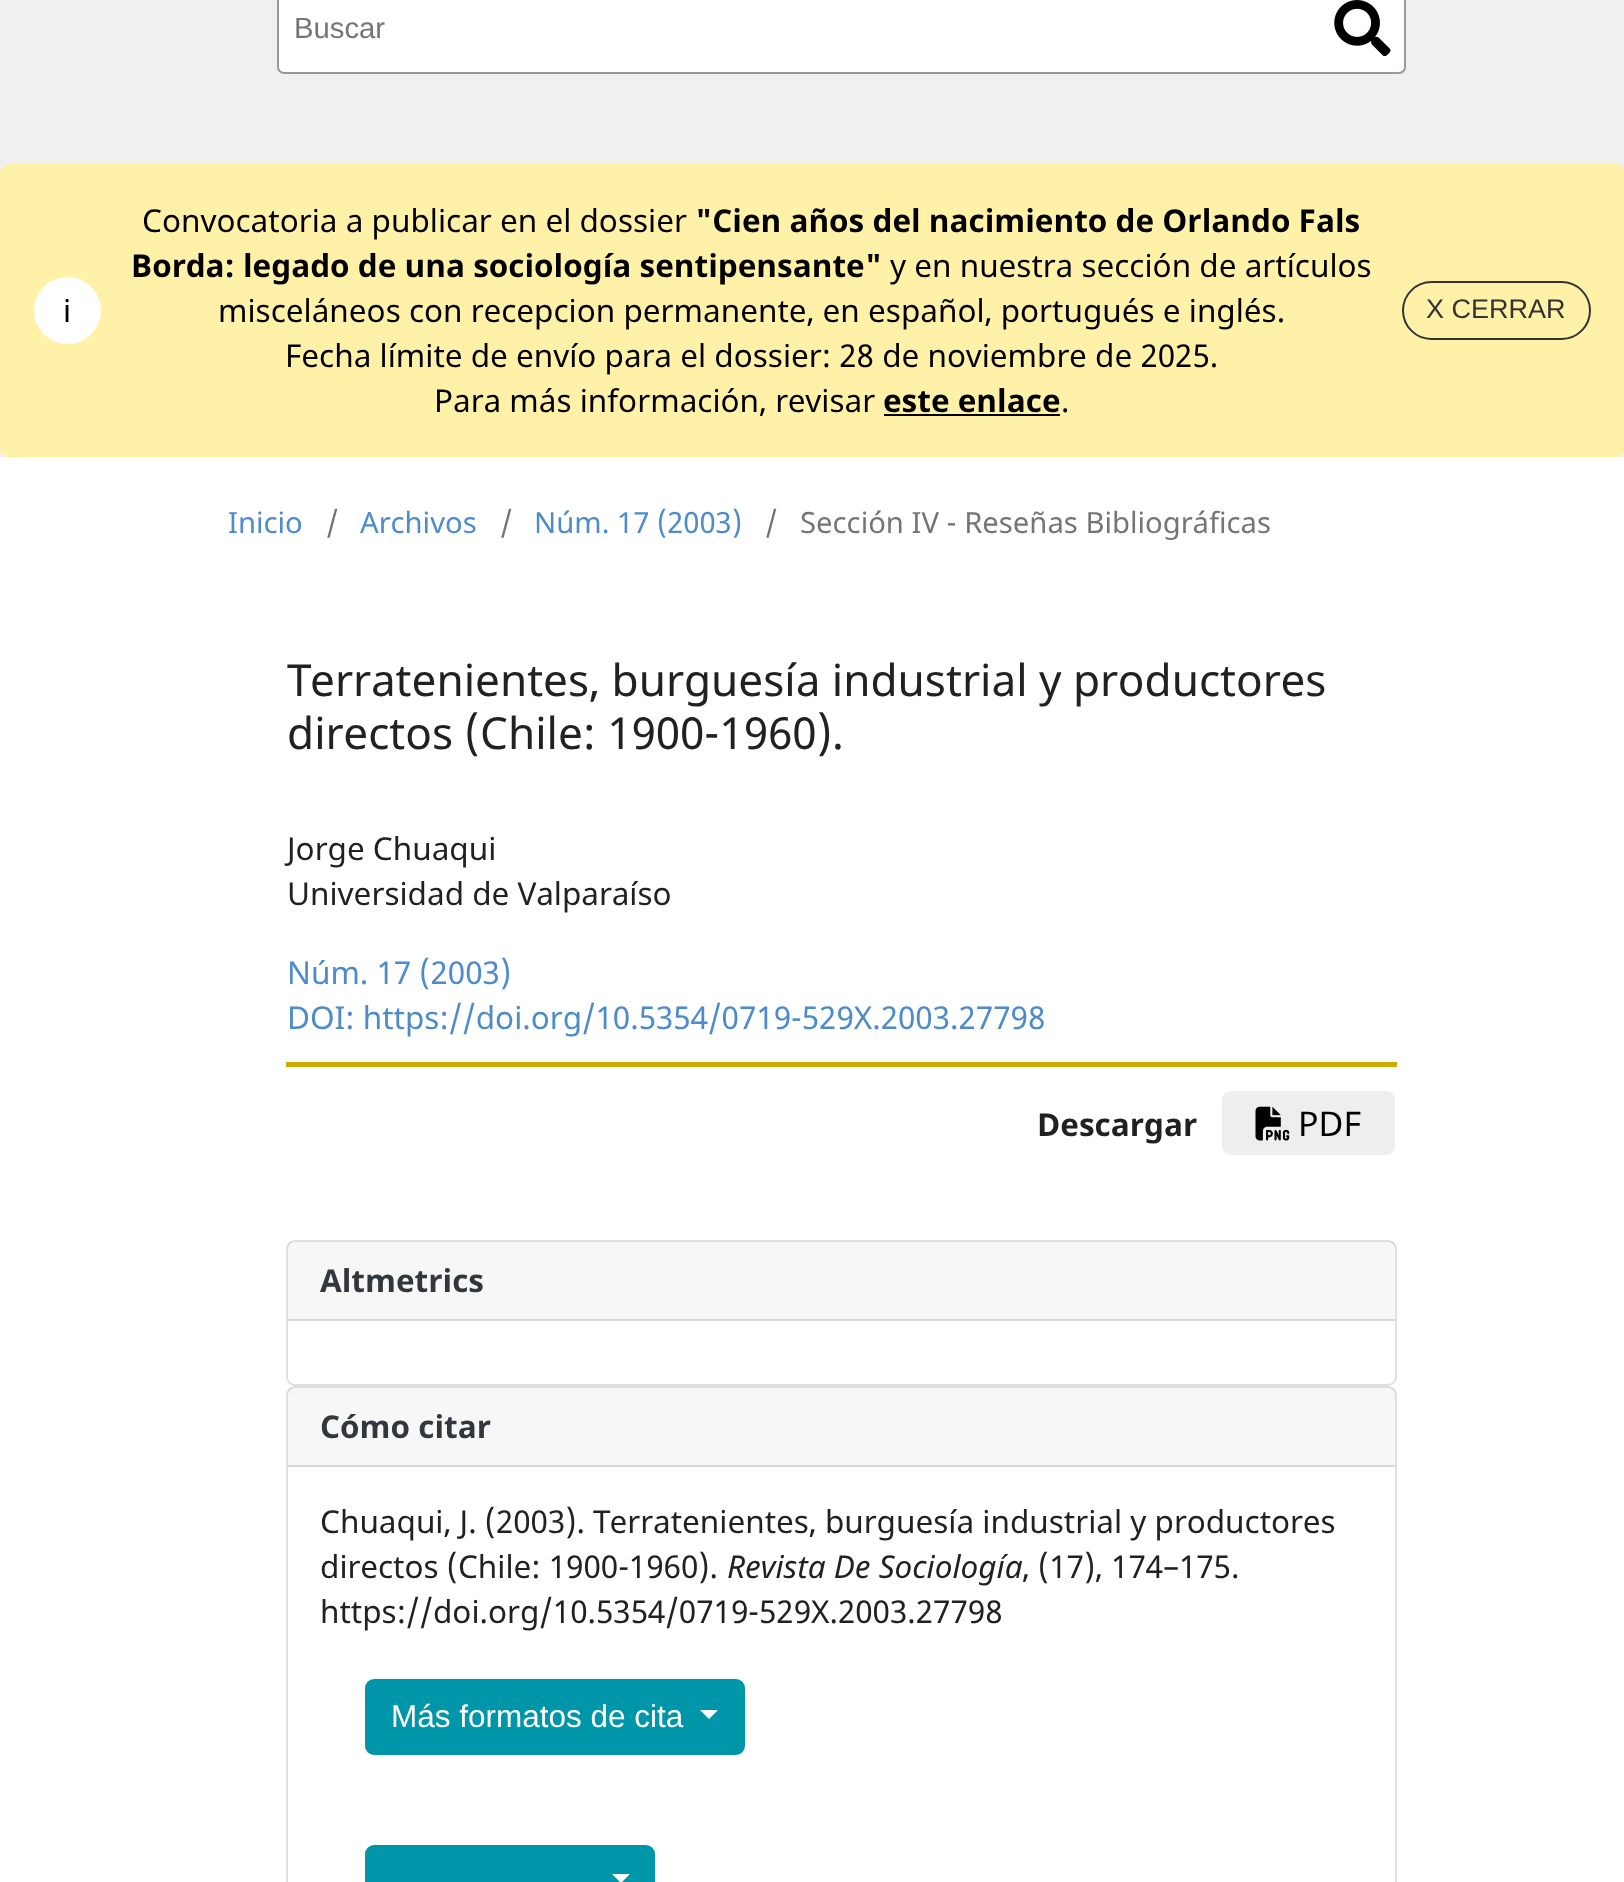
<svg xmlns="http://www.w3.org/2000/svg" width="1624" height="1882" viewBox="0 0 1624 1882">
  <rect width="100%" height="100%" fill="#ffffff"/>
  <rect x="0" y="0" width="1624" height="457" fill="#f0f0f0"/>
  <rect x="277" y="-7" width="1129" height="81" rx="7" fill="#ffffff"/>
  <rect x="278" y="-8" width="1127" height="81" rx="6" fill="none" stroke="#000000" stroke-opacity="0.4" stroke-width="2"/>
  <text x="294" y="38" font-family="Liberation Sans" font-size="29.25" fill="#757575">Buscar</text>
  <image x="1334" y="0" width="57" height="56" href="img1.png"/>
  <rect x="1" y="165" width="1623" height="291" rx="8" fill="#fff1a8" stroke="#fff1a8" stroke-width="2"/>
  <circle cx="67.5" cy="310.5" r="33.5" fill="#ffffff"/>
  <text x="63" y="322" font-family="Noto Sans" font-size="31.5" fill="#000000">i</text>
  <text x="142" y="232" font-family="Noto Sans" font-size="31.5" fill="#000000">Convocatoria a publicar en el dossier</text>
  <text x="695" y="232" font-family="Noto Sans" font-size="31.5" font-weight="bold" fill="#000000">"Cien años del nacimiento de Orlando Fals</text>
  <text x="131" y="277" font-family="Noto Sans" font-size="31.5" font-weight="bold" fill="#000000">Borda: legado de una sociología sentipensante"</text>
  <text x="890" y="277" font-family="Noto Sans" font-size="31.5" fill="#000000">y en nuestra sección de artículos</text>
  <text x="218" y="322" font-family="Noto Sans" font-size="31.5" fill="#000000">misceláneos con recepcion permanente, en español, portugués e inglés.</text>
  <text x="285" y="367" font-family="Noto Sans" font-size="31.5" fill="#000000">Fecha límite de envío para el dossier: 28 de noviembre de 2025.</text>
  <text x="434" y="412" font-family="Noto Sans" font-size="31.5" fill="#000000">Para más información, revisar</text>
  <text x="883" y="412" font-family="Noto Sans" font-size="31.5" font-weight="bold" fill="#000000">este enlace</text>
  <rect x="884" y="414" width="176" height="2" fill="#000000"/>
  <text x="1061" y="412" font-family="Noto Sans" font-size="31.5" fill="#000000">.</text>
  <rect x="1403" y="282" width="187" height="57" rx="28.5" fill="none" stroke="#333333" stroke-width="2"/>
  <text x="1426" y="318" font-family="Liberation Sans" font-size="27" fill="#333333">X CERRAR</text>
  <text x="228" y="533" font-family="Noto Sans" font-size="29.25" fill="#4d8bcb">Inicio</text>
  <text x="326" y="533" font-family="Noto Sans" font-size="29.25" fill="#757575">/</text>
  <text x="360" y="533" font-family="Noto Sans" font-size="29.25" fill="#4d8bcb">Archivos</text>
  <text x="500" y="533" font-family="Noto Sans" font-size="29.25" fill="#757575">/</text>
  <text x="534" y="533" font-family="Noto Sans" font-size="29.25" fill="#4d8bcb">Núm. 17 (2003)</text>
  <text x="765" y="533" font-family="Noto Sans" font-size="29.25" fill="#757575">/</text>
  <text x="800" y="533" font-family="Noto Sans" font-size="29.25" fill="#757575">Sección IV - Reseñas Bibliográficas</text>
  <text x="287" y="696" font-family="Noto Sans" font-size="44.1" fill="#212121">Terratenientes, burguesía industrial y productores</text>
  <text x="287" y="749" font-family="Noto Sans" font-size="44.1" fill="#212121">directos (Chile: 1900-1960).</text>
  <text x="287" y="860" font-family="Noto Sans" font-size="31.5" fill="#212121">Jorge Chuaqui</text>
  <text x="287" y="905" font-family="Noto Sans" font-size="31.5" fill="#212121">Universidad de Valparaíso</text>
  <text x="287" y="984" font-family="Noto Sans" font-size="31.5" fill="#4d8bcb">Núm. 17 (2003)</text>
  <text x="287" y="1029" font-family="Noto Sans" font-size="31.5" fill="#4d8bcb">DOI: https://doi.org/10.5354/0719-529X.2003.27798</text>
  <rect x="286" y="1062" width="1111" height="5" fill="#cfad00"/>
  <text x="1037" y="1136" font-family="Noto Sans" font-size="31.5" font-weight="bold" fill="#212121">Descargar</text>
  <rect x="1221" y="1090" width="175" height="66" rx="10" fill="#eeeeee" stroke="#ffffff" stroke-width="2"/>
  <image x="1255" y="1106" width="35" height="35" href="img2.png"/>
  <text x="1298" y="1136" font-family="Noto Sans" font-size="34" fill="#000000">PDF</text>
  <rect x="287" y="1241" width="1109" height="144" rx="8" fill="none" stroke="#dfdfdf" stroke-width="2"/>
  <rect x="288" y="1242" width="1107" height="77" fill="#000000" fill-opacity="0.03"/>
  <rect x="288" y="1319" width="1107" height="2" fill="#d8d8d8"/>
  <text x="320" y="1292" font-family="Noto Sans" font-size="31.5" font-weight="bold" fill="#32373d">Altmetrics</text>
  <rect x="287" y="1387" width="1109" height="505" rx="8" fill="none" stroke="#dfdfdf" stroke-width="2"/>
  <rect x="288" y="1388" width="1107" height="77" fill="#000000" fill-opacity="0.03"/>
  <rect x="288" y="1465" width="1107" height="2" fill="#d8d8d8"/>
  <text x="320" y="1438" font-family="Noto Sans" font-size="31.5" font-weight="bold" fill="#32373d">Cómo citar</text>
  <text x="320" y="1533" font-family="Noto Sans" font-size="31.5" fill="#212121">Chuaqui, J. (2003). Terratenientes, burguesía industrial y productores</text>
  <text x="320" y="1578" font-family="Noto Sans" font-size="31.5" fill="#212121">directos (Chile: 1900-1960).</text>
  <text x="727" y="1578" font-family="Noto Sans" font-size="31.5" font-style="italic" fill="#212121">Revista De Sociología</text>
  <text x="1022" y="1578" font-family="Noto Sans" font-size="31.5" fill="#212121">, (17), 174–175.</text>
  <text x="320" y="1623" font-family="Noto Sans" font-size="31.5" fill="#212121">https://doi.org/10.5354/0719-529X.2003.27798</text>
  <rect x="366" y="1680" width="378" height="74" rx="8" fill="#0096a9" stroke="#0096a9" stroke-width="2"/>
  <text x="391" y="1727" font-family="Liberation Sans" font-size="31.5" fill="#ffffff">Más formatos de cita</text>
  <path d="M700 1710H718L709 1719Z" fill="#ffffff"/>
  <rect x="366" y="1846" width="288" height="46" rx="8" fill="#0096a9" stroke="#0096a9" stroke-width="2"/>
  <path d="M612 1874H630L621 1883Z" fill="#ffffff"/>
</svg>
